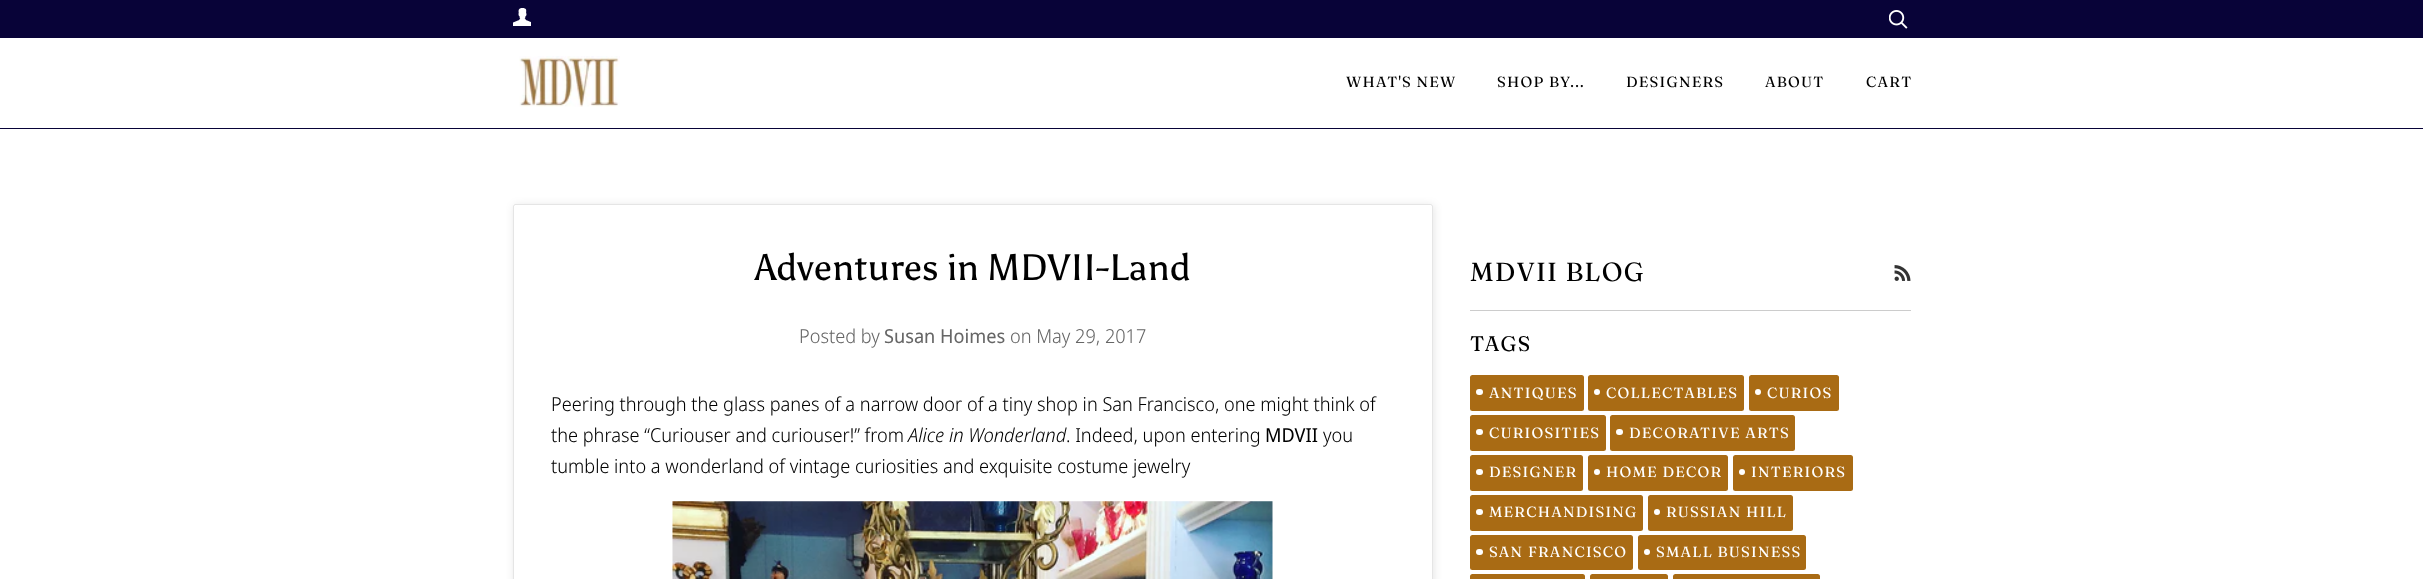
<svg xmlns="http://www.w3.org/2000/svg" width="2423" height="579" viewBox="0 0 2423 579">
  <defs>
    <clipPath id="clip1"><path d="M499 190H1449V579H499ZM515.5 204H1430.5C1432 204 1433 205 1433 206.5V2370.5C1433 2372 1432 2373 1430.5 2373H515.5C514 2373 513 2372 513 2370.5V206.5C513 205 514 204 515.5 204Z" clip-rule="evenodd"/></clipPath>
    <filter id="blur1" x="-50%" y="-200%" width="200%" height="500%"><feGaussianBlur stdDeviation="4.5"/></filter>
  </defs>
  <rect width="100%" height="100%" fill="#ffffff"/>
  <rect x="0" y="0" width="2423" height="38" fill="#080338"/>
  <image x="513" y="8" width="18" height="18" href="img1.png"/>
  <image x="1889" y="10" width="19" height="19" href="img2.png"/>
  <rect x="0" y="128" width="2423" height="1" fill="#080338"/>
  <image x="519" y="56" width="101" height="51" href="img3.png"/>
  <text x="1346" y="87" font-family="'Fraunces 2'" font-size="14.75" letter-spacing="1.25" fill="#000000">WHAT'S NEW</text>
  <text x="1497" y="87" font-family="'Fraunces 2'" font-size="14.75" letter-spacing="1.25" fill="#000000">SHOP BY...</text>
  <text x="1626" y="87" font-family="'Fraunces 2'" font-size="14.75" letter-spacing="1.25" fill="#000000">DESIGNERS</text>
  <text x="1765" y="87" font-family="'Fraunces 2'" font-size="14.75" letter-spacing="1.25" fill="#000000">ABOUT</text>
  <text x="1866" y="87" font-family="'Fraunces 2'" font-size="14.75" letter-spacing="1.25" fill="#000000">CART</text>
  <g clip-path="url(#clip1)">
    <rect x="514" y="205" width="920" height="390" rx="2.5" fill="#000000" fill-opacity="0.1" filter="url(#blur1)"/>
  </g>
  <rect x="513.5" y="204.5" width="919" height="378" rx="2" fill="none" stroke="#000000" stroke-opacity="0.1"/>
  <text x="755" y="280" font-family="Asul" font-size="36.75" fill="#000000">Adventures in MDVII-Land</text>
  <text x="799" y="343" font-family="Noto Sans Display" font-size="19.25" font-weight="300" fill="#666666">Posted by</text>
  <text x="884" y="343" font-family="Noto Sans Display" font-size="19.25" fill="#666666">Susan Hoimes</text>
  <text x="1010" y="343" font-family="Noto Sans Display" font-size="19.25" font-weight="300" fill="#666666">on May 29, 2017</text>
  <text x="551" y="411" font-family="Noto Sans Display" font-size="19.25" font-weight="300" fill="#000000">Peering through the glass panes of a narrow door of a tiny shop in San Francisco, one might think of</text>
  <text x="551" y="442" font-family="Noto Sans Display" font-size="19.25" font-weight="300" fill="#000000">the phrase “Curiouser and curiouser!” from</text>
  <text x="908" y="442" font-family="Noto Sans Display" font-size="19.25" font-weight="300" font-style="italic" fill="#000000">Alice in Wonderland</text>
  <text x="1066" y="442" font-family="Noto Sans Display" font-size="19.25" font-weight="300" fill="#000000">. Indeed, upon entering</text>
  <text x="1265" y="442" font-family="Noto Sans Display" font-size="19.25" fill="#000000">MDVII</text>
  <text x="1323" y="442" font-family="Noto Sans Display" font-size="19.25" font-weight="300" fill="#000000">you</text>
  <text x="551" y="473" font-family="Noto Sans Display" font-size="19.25" font-weight="300" fill="#000000">tumble into a wonderland of vintage curiosities and exquisite costume jewelry</text>
  <image x="672" y="501" width="601" height="78" href="img4.png"/>
  <text x="1470" y="281" font-family="Fraunces" font-size="26.25" letter-spacing="1.25" fill="#000000">MDVII BLOG</text>
  <image x="1894" y="265" width="17" height="16" href="img5.png"/>
  <rect x="1470" y="310" width="441" height="1" fill="#cccccc"/>
  <text x="1470" y="351" font-family="'Fraunces 2'" font-size="21" letter-spacing="1.25" fill="#000000">TAGS</text>
  <rect x="1470" y="375" width="114" height="36" rx="2.5" fill="#a96b14"/>
  <rect x="1476" y="389" width="7" height="6" rx="3" fill="#ffffff"/>
  <text x="1489" y="398" font-family="'Fraunces 2'" font-size="14.75" letter-spacing="1.25" fill="#ffffff">ANTIQUES</text>
  <rect x="1588" y="375" width="156" height="36" rx="2.5" fill="#a96b14"/>
  <circle cx="1597" cy="392" r="3" fill="#ffffff"/>
  <text x="1606" y="398" font-family="'Fraunces 2'" font-size="14.75" letter-spacing="1.25" fill="#ffffff">COLLECTABLES</text>
  <rect x="1749" y="375" width="90" height="36" rx="2.5" fill="#a96b14"/>
  <circle cx="1758" cy="392" r="3" fill="#ffffff"/>
  <text x="1767" y="398" font-family="'Fraunces 2'" font-size="14.75" letter-spacing="1.25" fill="#ffffff">CURIOS</text>
  <rect x="1470" y="415" width="136" height="36" rx="2.5" fill="#a96b14"/>
  <rect x="1476" y="429" width="7" height="6" rx="3" fill="#ffffff"/>
  <text x="1489" y="438" font-family="'Fraunces 2'" font-size="14.75" letter-spacing="1.25" fill="#ffffff">CURIOSITIES</text>
  <rect x="1610" y="415" width="185" height="36" rx="2.5" fill="#a96b14"/>
  <rect x="1616" y="429" width="7" height="6" rx="3" fill="#ffffff"/>
  <text x="1629" y="438" font-family="'Fraunces 2'" font-size="14.75" letter-spacing="1.25" fill="#ffffff">DECORATIVE ARTS</text>
  <rect x="1470" y="455" width="113" height="36" rx="2.5" fill="#a96b14"/>
  <rect x="1476" y="469" width="7" height="6" rx="3" fill="#ffffff"/>
  <text x="1489" y="477" font-family="'Fraunces 2'" font-size="14.75" letter-spacing="1.25" fill="#ffffff">DESIGNER</text>
  <rect x="1588" y="455" width="140" height="36" rx="2.5" fill="#a96b14"/>
  <circle cx="1597" cy="472" r="3" fill="#ffffff"/>
  <text x="1606" y="477" font-family="'Fraunces 2'" font-size="14.75" letter-spacing="1.25" fill="#ffffff">HOME DECOR</text>
  <rect x="1733" y="455" width="120" height="36" rx="2.5" fill="#a96b14"/>
  <circle cx="1742" cy="472" r="3" fill="#ffffff"/>
  <text x="1751" y="477" font-family="'Fraunces 2'" font-size="14.75" letter-spacing="1.25" fill="#ffffff">INTERIORS</text>
  <rect x="1470" y="495" width="173" height="36" rx="2.5" fill="#a96b14"/>
  <rect x="1476" y="509" width="7" height="6" rx="3" fill="#ffffff"/>
  <text x="1489" y="517" font-family="'Fraunces 2'" font-size="14.75" letter-spacing="1.25" fill="#ffffff">MERCHANDISING</text>
  <rect x="1648" y="495" width="145" height="36" rx="2.5" fill="#a96b14"/>
  <circle cx="1657" cy="512" r="3" fill="#ffffff"/>
  <text x="1666" y="517" font-family="'Fraunces 2'" font-size="14.75" letter-spacing="1.25" fill="#ffffff">RUSSIAN HILL</text>
  <rect x="1470" y="535" width="163" height="35" rx="2.5" fill="#a96b14"/>
  <rect x="1476" y="549" width="7" height="6" rx="3" fill="#ffffff"/>
  <text x="1489" y="557" font-family="'Fraunces 2'" font-size="14.75" letter-spacing="1.25" fill="#ffffff">SAN FRANCISCO</text>
  <rect x="1638" y="535" width="168" height="35" rx="2.5" fill="#a96b14"/>
  <circle cx="1647" cy="552" r="3" fill="#ffffff"/>
  <text x="1656" y="557" font-family="'Fraunces 2'" font-size="14.75" letter-spacing="1.25" fill="#ffffff">SMALL BUSINESS</text>
  <rect x="1470" y="574" width="115" height="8" rx="2.5" fill="#a96b14"/>
  <rect x="1590" y="574" width="78" height="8" rx="2.5" fill="#a96b14"/>
  <rect x="1673" y="574" width="147" height="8" rx="2.5" fill="#a96b14"/>
</svg>
